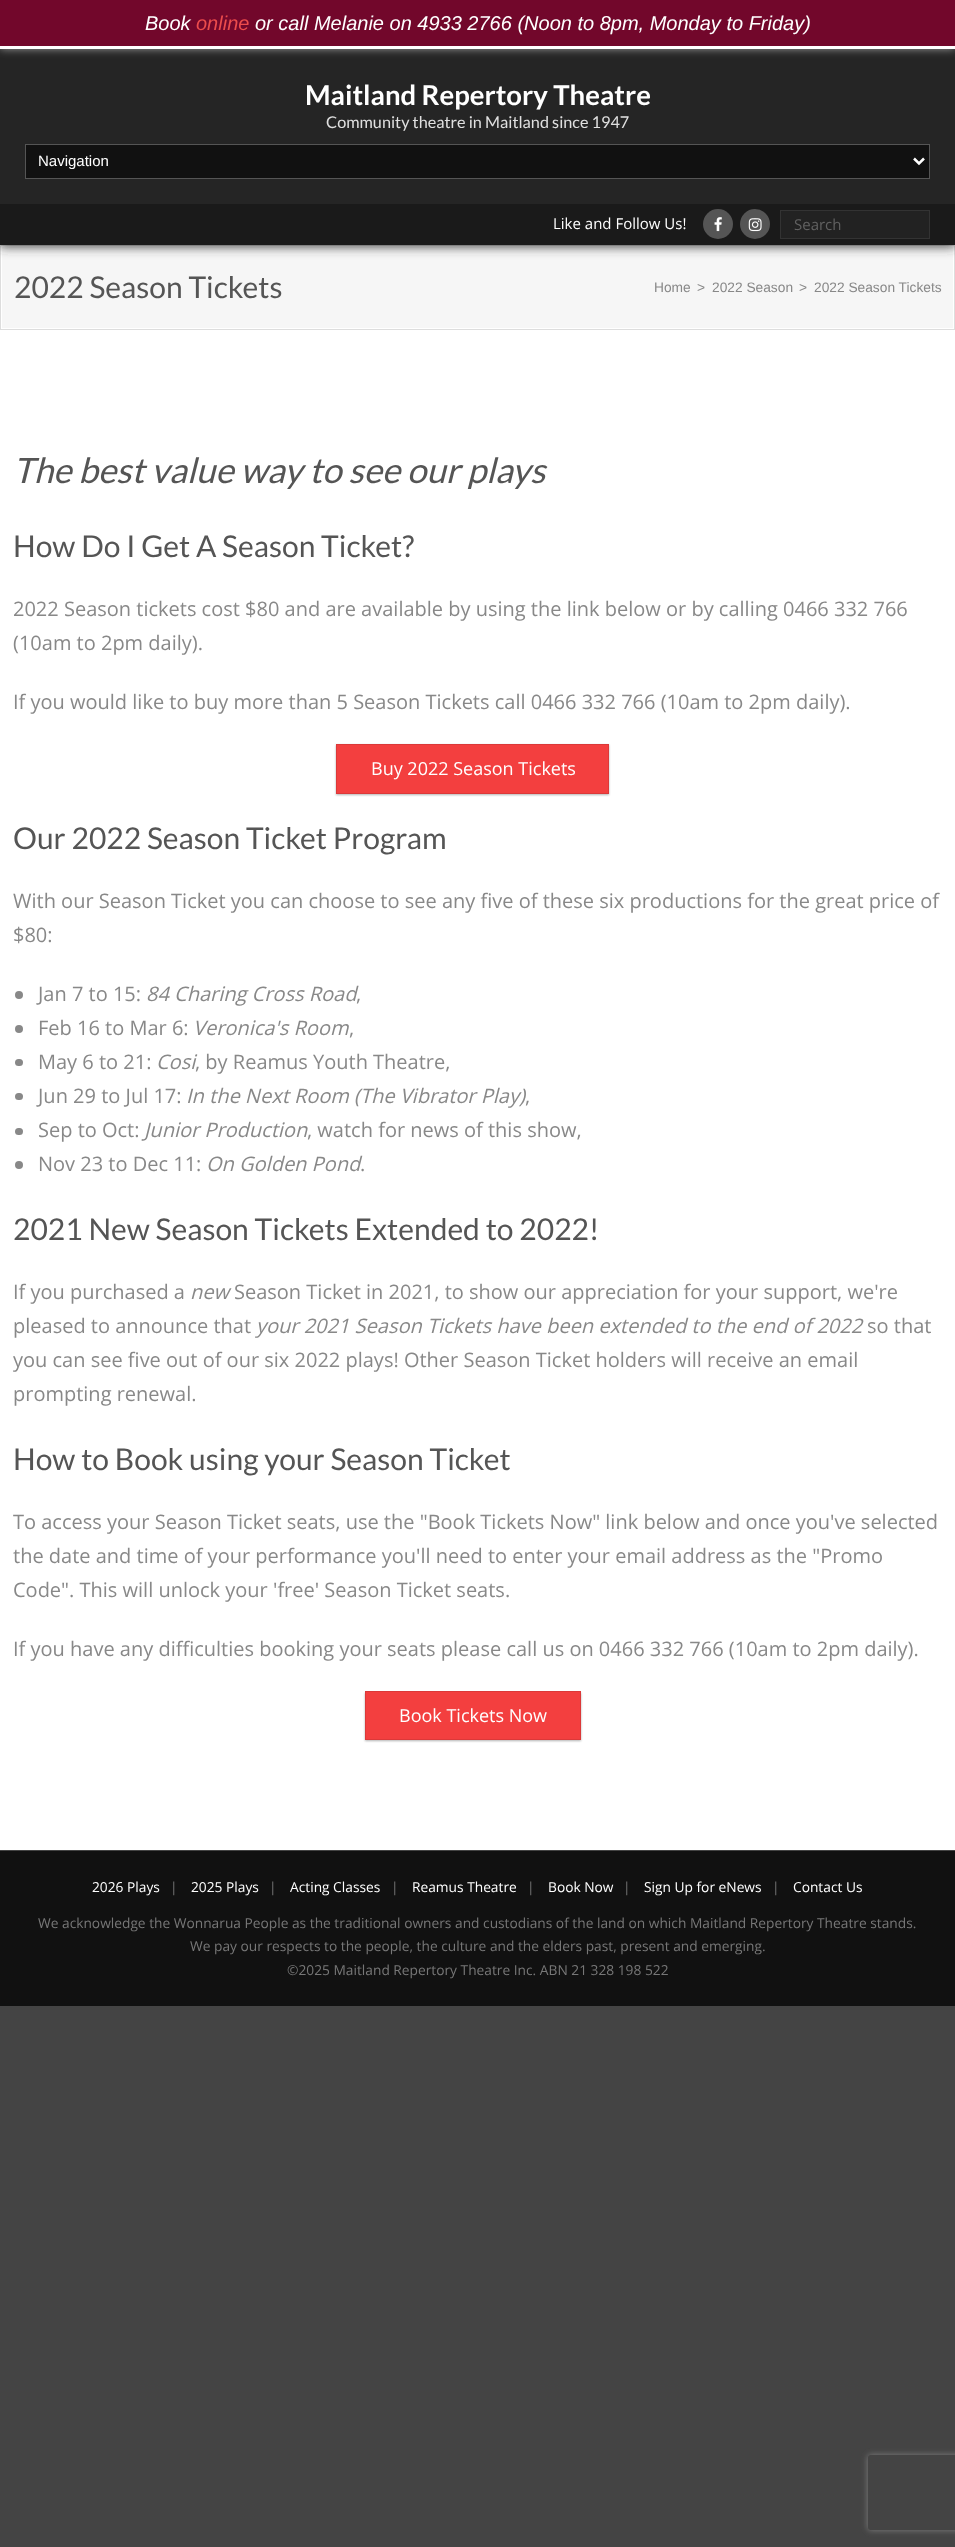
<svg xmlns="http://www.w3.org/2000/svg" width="955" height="2547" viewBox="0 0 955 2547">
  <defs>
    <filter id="blur1" x="-50%" y="-200%" width="200%" height="500%"><feGaussianBlur stdDeviation="6"/></filter>
    <filter id="blur2" x="-50%" y="-200%" width="200%" height="500%"><feGaussianBlur stdDeviation="4"/></filter>
    <filter id="blur3" x="-50%" y="-200%" width="200%" height="500%"><feGaussianBlur stdDeviation="1"/></filter>
    <clipPath id="clip1"><path d="M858 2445H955V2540H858ZM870.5 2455H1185.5C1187 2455 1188 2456 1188 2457.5V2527.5C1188 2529 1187 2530 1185.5 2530H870.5C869 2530 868 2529 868 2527.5V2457.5C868 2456 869 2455 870.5 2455Z" clip-rule="evenodd"/></clipPath>
    <filter id="blur4" x="-50%" y="-200%" width="200%" height="500%"><feGaussianBlur stdDeviation="3"/></filter>
  </defs>
  <rect width="100%" height="100%" fill="#444444"/>
  <rect x="1.5" y="246.5" width="952" height="82" fill="#f6f6f6" stroke="#ffffff"/>
  <rect x="0.5" y="245.5" width="954" height="84" fill="none" stroke="#dddddd"/>
  <rect x="-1" y="38" width="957" height="208" fill="#333333" filter="url(#blur1)"/>
  <rect x="0" y="49" width="955" height="155" fill="#252525"/>
  <rect x="0" y="0" width="955" height="49" fill="#999999" filter="url(#blur2)"/>
  <rect x="0" y="0" width="955" height="46" fill="#72072b"/>
  <rect x="0" y="46" width="955" height="3" fill="#ffffff"/>
  <text x="145" y="30" font-family="Liberation Sans" font-size="20" font-style="italic" fill="#ffffff">Book</text>
  <text x="196" y="30" font-family="Liberation Sans" font-size="20" font-style="italic" fill="#ec4c4c">online</text>
  <text x="255" y="30" font-family="Liberation Sans" font-size="20" font-style="italic" fill="#ffffff">or call Melanie on 4933 2766 (Noon to 8pm, Monday to Friday)</text>
  <rect x="0" y="330" width="955" height="1520" fill="#ffffff"/>
  <text x="305" y="105" font-family="Lato" font-size="27.5" font-weight="bold" fill="#ffffff">Maitland Repertory Theatre</text>
  <text x="326" y="128" font-family="Lato" font-size="16.25" fill="#e0e0e0">Community theatre in Maitland since 1947</text>
  <rect x="25.5" y="144.5" width="904" height="34" fill="#111111" stroke="#555555"/>
  <path d="M914 158.5L919 163.5L924 158.5" fill="none" stroke="#ffffff" stroke-width="2.5"/>
  <text x="38" y="166" font-family="Liberation Sans" font-size="15" fill="#ffffff">Navigation</text>
  <rect x="0" y="204" width="955" height="41" fill="#1a1a1a"/>
  <text x="553" y="229" font-family="Open Sans" font-size="15" fill="#ffffff">Like and Follow Us!</text>
  <circle cx="718" cy="224" r="15" fill="#555555"/>
  <image x="714" y="217" width="8" height="15" href="img1.png"/>
  <circle cx="755" cy="224" r="15" fill="#555555"/>
  <image x="748" y="218" width="14" height="14" href="img2.png"/>
  <rect x="780.5" y="210.5" width="149" height="28" fill="#222222" stroke="#333333"/>
  <text x="794" y="230" font-family="Open Sans" font-size="15" fill="#616161">Search</text>
  <text x="14" y="298" font-family="Lato" font-size="30" fill="#555555">2022 Season Tickets</text>
  <text x="654" y="292" font-family="Liberation Sans" font-size="13.75" fill="#888888">Home</text>
  <text x="697" y="292" font-family="Liberation Sans" font-size="13.75" fill="#888888">&gt;</text>
  <text x="712" y="292" font-family="Liberation Sans" font-size="13.75" fill="#888888">2022 Season</text>
  <text x="799" y="292" font-family="Liberation Sans" font-size="13.75" fill="#888888">&gt;</text>
  <text x="814" y="292" font-family="Liberation Sans" font-size="13.75" fill="#888888">2022 Season Tickets</text>
  <text x="13" y="483" font-family="Lato" font-size="35" font-style="italic" fill="#555555">The best value way to see our plays</text>
  <text x="13" y="557" font-family="Lato" font-size="30" fill="#555555">How Do I Get A Season Ticket?</text>
  <text x="13" y="616" font-family="Open Sans" font-size="20" fill="#888888">2022 Season tickets cost $80 and are available by using the link below or by calling 0466 332 766</text>
  <text x="13" y="650" font-family="Open Sans" font-size="20" fill="#888888">(10am to 2pm daily).</text>
  <text x="13" y="709" font-family="Open Sans" font-size="20" fill="#888888">If you would like to buy more than 5 Season Tickets call 0466 332 766 (10am to 2pm daily).</text>
  <rect x="336" y="745" width="273" height="50" fill="#000000" fill-opacity="0.3" filter="url(#blur3)"/>
  <rect x="336.5" y="744.5" width="272" height="49" fill="#f33f3f" stroke="#db3939"/>
  <text x="371" y="775" font-family="Open Sans" font-size="18" fill="#ffffff">Buy 2022 Season Tickets</text>
  <text x="13" y="849" font-family="Lato" font-size="30" fill="#555555">Our 2022 Season Ticket Program</text>
  <text x="13" y="908" font-family="Open Sans" font-size="20" fill="#888888">With our Season Ticket you can choose to see any five of these six productions for the great price of</text>
  <text x="13" y="942" font-family="Open Sans" font-size="20" fill="#888888">$80:</text>
  <circle cx="19" cy="995" r="4" fill="#888888"/>
  <text x="38" y="1001" font-family="Open Sans" font-size="20" fill="#888888">Jan 7 to 15:</text>
  <text x="146" y="1001" font-family="Open Sans" font-size="20" font-style="italic" fill="#888888">84 Charing Cross Road</text>
  <text x="356" y="1001" font-family="Open Sans" font-size="20" fill="#888888">,</text>
  <circle cx="19" cy="1029" r="4" fill="#888888"/>
  <text x="38" y="1035" font-family="Open Sans" font-size="20" fill="#888888">Feb 16 to Mar 6:</text>
  <text x="193" y="1035" font-family="Open Sans" font-size="20" font-style="italic" fill="#888888">Veronica's Room</text>
  <text x="349" y="1035" font-family="Open Sans" font-size="20" fill="#888888">,</text>
  <rect x="15" y="1059" width="8" height="7" rx="3.5" fill="#888888"/>
  <text x="38" y="1069" font-family="Open Sans" font-size="20" fill="#888888">May 6 to 21:</text>
  <text x="156" y="1069" font-family="Open Sans" font-size="20" font-style="italic" fill="#888888">Cosi</text>
  <text x="195" y="1069" font-family="Open Sans" font-size="20" fill="#888888">, by Reamus Youth Theatre,</text>
  <rect x="15" y="1093" width="8" height="7" rx="3.5" fill="#888888"/>
  <text x="38" y="1103" font-family="Open Sans" font-size="20" fill="#888888">Jun 29 to Jul 17:</text>
  <text x="186" y="1103" font-family="Open Sans" font-size="20" font-style="italic" fill="#888888">In the Next Room (The Vibrator Play)</text>
  <text x="525" y="1103" font-family="Open Sans" font-size="20" fill="#888888">,</text>
  <rect x="15" y="1128" width="8" height="7" rx="3.5" fill="#888888"/>
  <text x="38" y="1137" font-family="Open Sans" font-size="20" fill="#888888">Sep to Oct:</text>
  <text x="144" y="1137" font-family="Open Sans" font-size="20" font-style="italic" fill="#888888">Junior Production</text>
  <text x="307" y="1137" font-family="Open Sans" font-size="20" fill="#888888">, watch for news of this show,</text>
  <circle cx="19" cy="1165" r="4" fill="#888888"/>
  <text x="38" y="1171" font-family="Open Sans" font-size="20" fill="#888888">Nov 23 to Dec 11:</text>
  <text x="206" y="1171" font-family="Open Sans" font-size="20" font-style="italic" fill="#888888">On Golden Pond</text>
  <text x="360" y="1171" font-family="Open Sans" font-size="20" fill="#888888">.</text>
  <text x="13" y="1240" font-family="Lato" font-size="30" fill="#555555">2021 New Season Tickets Extended to 2022!</text>
  <text x="13" y="1299" font-family="Open Sans" font-size="20" fill="#888888">If you purchased a</text>
  <text x="190" y="1299" font-family="Open Sans" font-size="20" font-style="italic" fill="#888888">new</text>
  <text x="234" y="1299" font-family="Open Sans" font-size="20" fill="#888888">Season Ticket in 2021, to show our appreciation for your support, we're</text>
  <text x="13" y="1333" font-family="Open Sans" font-size="20" fill="#888888">pleased to announce that</text>
  <text x="256" y="1333" font-family="Open Sans" font-size="20" font-style="italic" fill="#888888">your 2021 Season Tickets have been extended to the end of 2022</text>
  <text x="867" y="1333" font-family="Open Sans" font-size="20" fill="#888888">so that</text>
  <text x="13" y="1367" font-family="Open Sans" font-size="20" fill="#888888">you can see five out of our six 2022 plays! Other Season Ticket holders will receive an email</text>
  <text x="13" y="1401" font-family="Open Sans" font-size="20" fill="#888888">prompting renewal.</text>
  <text x="13" y="1470" font-family="Lato" font-size="30" fill="#555555">How to Book using your Season Ticket</text>
  <text x="13" y="1529" font-family="Open Sans" font-size="20" fill="#888888">To access your Season Ticket seats, use the "Book Tickets Now" link below and once you've selected</text>
  <text x="13" y="1563" font-family="Open Sans" font-size="20" fill="#888888">the date and time of your performance you'll need to enter your email address as the "Promo</text>
  <text x="13" y="1597" font-family="Open Sans" font-size="20" fill="#888888">Code". This will unlock your 'free' Season Ticket seats.</text>
  <text x="13" y="1656" font-family="Open Sans" font-size="20" fill="#888888">If you have any difficulties booking your seats please call us on 0466 332 766 (10am to 2pm daily).</text>
  <rect x="365" y="1693" width="216" height="48" fill="#000000" fill-opacity="0.3" filter="url(#blur3)"/>
  <rect x="365.5" y="1691.5" width="215" height="48" fill="#f33f3f" stroke="#db3939"/>
  <text x="399" y="1722" font-family="Open Sans" font-size="18" fill="#ffffff">Book Tickets Now</text>
  <rect x="0" y="1851" width="955" height="155" fill="#111111"/>
  <text x="92" y="1892" font-family="Open Sans" font-size="13.75" fill="#ffffff">2026 Plays</text>
  <text x="170" y="1892" font-family="Open Sans" font-size="13.75" fill="#777777">|</text>
  <text x="191" y="1892" font-family="Open Sans" font-size="13.75" fill="#ffffff">2025 Plays</text>
  <text x="269" y="1892" font-family="Open Sans" font-size="13.75" fill="#777777">|</text>
  <text x="290" y="1892" font-family="Open Sans" font-size="13.75" fill="#ffffff">Acting Classes</text>
  <text x="391" y="1892" font-family="Open Sans" font-size="13.75" fill="#777777">|</text>
  <text x="412" y="1892" font-family="Open Sans" font-size="13.75" fill="#ffffff">Reamus Theatre</text>
  <text x="527" y="1892" font-family="Open Sans" font-size="13.75" fill="#777777">|</text>
  <text x="548" y="1892" font-family="Open Sans" font-size="13.75" fill="#ffffff">Book Now</text>
  <text x="623" y="1892" font-family="Open Sans" font-size="13.75" fill="#777777">|</text>
  <text x="644" y="1892" font-family="Open Sans" font-size="13.75" fill="#ffffff">Sign Up for eNews</text>
  <text x="772" y="1892" font-family="Open Sans" font-size="13.75" fill="#777777">|</text>
  <text x="793" y="1892" font-family="Open Sans" font-size="13.75" fill="#ffffff">Contact Us</text>
  <text x="38" y="1928" font-family="Open Sans" font-size="13.75" fill="#777777">We acknowledge the Wonnarua People as the traditional owners and custodians of the land on which Maitland Repertory Theatre stands.</text>
  <text x="190" y="1951" font-family="Open Sans" font-size="13.75" fill="#777777">We pay our respects to the people, the culture and the elders past, present and emerging.</text>
  <text x="287" y="1975" font-family="Open Sans" font-size="13.75" fill="#777777">©2025 Maitland Repertory Theatre Inc. ABN 21 328 198 522</text>
  <g clip-path="url(#clip1)">
    <rect x="868" y="2455" width="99" height="75" rx="2.5" fill="#808080" filter="url(#blur4)"/>
  </g>
</svg>
